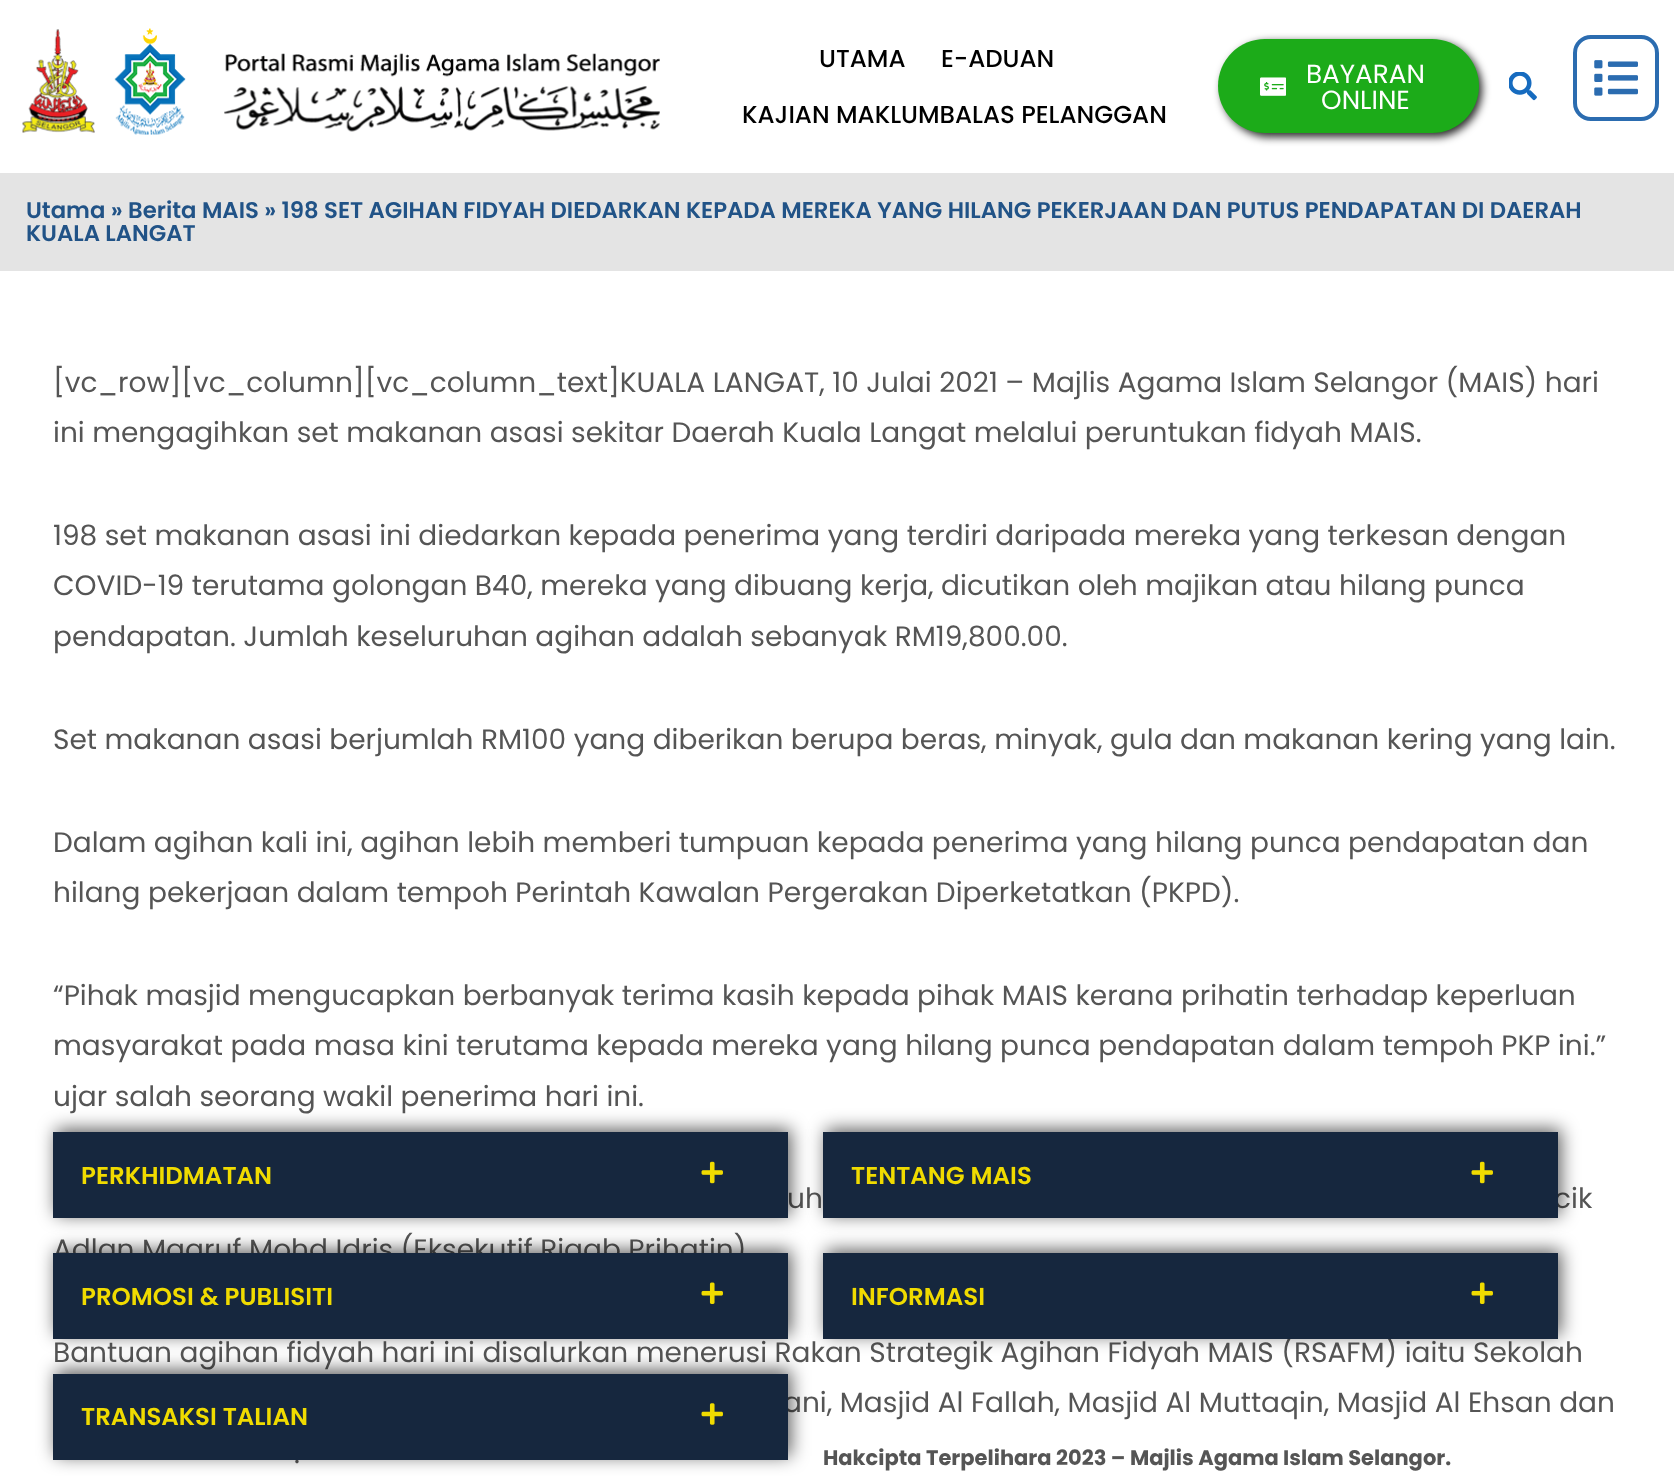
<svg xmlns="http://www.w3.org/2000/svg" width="1674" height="1476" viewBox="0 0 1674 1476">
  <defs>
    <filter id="blur1" x="-50%" y="-200%" width="200%" height="500%"><feGaussianBlur stdDeviation="4.5"/></filter>
    <filter id="blur2" x="-50%" y="-200%" width="200%" height="500%"><feGaussianBlur stdDeviation="9"/></filter>
  </defs>
  <rect width="100%" height="100%" fill="#ffffff"/>
  <image x="22" y="28" width="638" height="107" href="img1.png"/>
  <text x="819" y="67" font-family="Poppins" font-size="24.5" font-weight="500" fill="#000000">UTAMA</text>
  <text x="941" y="67" font-family="Poppins" font-size="24.5" font-weight="500" fill="#000000">E-ADUAN</text>
  <text x="742" y="123" font-family="Poppins" font-size="24.5" font-weight="500" fill="#000000">KAJIAN MAKLUMBALAS PELANGGAN</text>
  <rect x="1222" y="42" width="260" height="95" rx="47.5" fill="#000000" fill-opacity="0.84" filter="url(#blur1)"/>
  <rect x="1218" y="39" width="261" height="94" rx="47" fill="#1cab19"/>
  <image x="1260" y="77" width="26" height="19" href="img2.png"/>
  <text x="1306" y="83" font-family="Poppins" font-size="26.25" fill="#ffffff">BAYARAN</text>
  <text x="1321" y="109" font-family="Poppins" font-size="26.25" fill="#ffffff">ONLINE</text>
  <image x="1509" y="72" width="28" height="29" href="img3.png"/>
  <rect x="1575" y="37" width="82" height="82" rx="16" fill="none" stroke="#2b6cb0" stroke-width="4"/>
  <image x="1594" y="60" width="44" height="36" href="img4.png"/>
  <rect x="0" y="173" width="1674" height="98" fill="#e4e4e4"/>
  <text x="26" y="218" font-family="Poppins" font-size="22.75" font-weight="600" fill="#215387">Utama » Berita MAIS » 198 SET AGIHAN FIDYAH DIEDARKAN KEPADA MEREKA YANG HILANG PEKERJAAN DAN PUTUS PENDAPATAN DI DAERAH</text>
  <text x="26" y="241" font-family="Poppins" font-size="22.75" font-weight="600" fill="#215387">KUALA LANGAT</text>
  <text x="53" y="392" font-family="Poppins" font-size="28" fill="#555555">[vc_row][vc_column][vc_column_text]KUALA LANGAT, 10 Julai 2021 – Majlis Agama Islam Selangor (MAIS) hari</text>
  <text x="53" y="442" font-family="Poppins" font-size="28" fill="#555555">ini mengagihkan set makanan asasi sekitar Daerah Kuala Langat melalui peruntukan fidyah MAIS.</text>
  <text x="53" y="545" font-family="Poppins" font-size="28" fill="#555555">198 set makanan asasi ini diedarkan kepada penerima yang terdiri daripada mereka yang terkesan dengan</text>
  <text x="53" y="595" font-family="Poppins" font-size="28" fill="#555555">COVID-19 terutama golongan B40, mereka yang dibuang kerja, dicutikan oleh majikan atau hilang punca</text>
  <text x="53" y="646" font-family="Poppins" font-size="28" fill="#555555">pendapatan. Jumlah keseluruhan agihan adalah sebanyak RM19,800.00.</text>
  <text x="53" y="749" font-family="Poppins" font-size="28" fill="#555555">Set makanan asasi berjumlah RM100 yang diberikan berupa beras, minyak, gula dan makanan kering yang lain.</text>
  <text x="53" y="852" font-family="Poppins" font-size="28" fill="#555555">Dalam agihan kali ini, agihan lebih memberi tumpuan kepada penerima yang hilang punca pendapatan dan</text>
  <text x="53" y="902" font-family="Poppins" font-size="28" fill="#555555">hilang pekerjaan dalam tempoh Perintah Kawalan Pergerakan Diperketatkan (PKPD).</text>
  <text x="53" y="1005" font-family="Poppins" font-size="28" fill="#555555">“Pihak masjid mengucapkan berbanyak terima kasih kepada pihak MAIS kerana prihatin terhadap keperluan</text>
  <text x="53" y="1055" font-family="Poppins" font-size="28" fill="#555555">masyarakat pada masa kini terutama kepada mereka yang hilang punca pendapatan dalam tempoh PKP ini.”</text>
  <text x="53" y="1106" font-family="Poppins" font-size="28" fill="#555555">ujar salah seorang wakil penerima hari ini.</text>
  <text x="787" y="1208" font-family="Poppins" font-size="28" fill="#555555">uh</text>
  <text x="1554" y="1208" font-family="Poppins" font-size="28" fill="#555555">cik</text>
  <text x="53" y="1259" font-family="Poppins" font-size="28" fill="#555555">Adlan Maaruf Mohd Idris (Eksekutif Riqab Prihatin)</text>
  <text x="53" y="1362" font-family="Poppins" font-size="28" fill="#555555">Bantuan agihan fidyah hari ini disalurkan menerusi Rakan Strategik Agihan Fidyah MAIS (RSAFM) iaitu Sekolah</text>
  <text x="783" y="1412" font-family="Poppins" font-size="28" fill="#555555">ani, Masjid Al Fallah, Masjid Al Muttaqin, Masjid Al Ehsan dan</text>
  <text x="294" y="1463" font-family="Poppins" font-size="28" fill="#555555">.</text>
  <rect x="56" y="1129" width="735" height="86" fill="#000000" fill-opacity="0.63" filter="url(#blur2)"/>
  <rect x="53" y="1132" width="735" height="86" fill="#16273e"/>
  <text x="81" y="1184" font-family="Poppins" font-size="24.5" font-weight="600" fill="#f0db00">PERKHIDMATAN</text>
  <image x="701" y="1161" width="22" height="23" href="img5.png"/>
  <rect x="826" y="1129" width="735" height="86" fill="#000000" fill-opacity="0.63" filter="url(#blur2)"/>
  <rect x="823" y="1132" width="735" height="86" fill="#16273e"/>
  <text x="851" y="1184" font-family="Poppins" font-size="24.5" font-weight="600" fill="#f0db00">TENTANG MAIS</text>
  <image x="1471" y="1161" width="22" height="23" href="img5.png"/>
  <rect x="56" y="1250" width="735" height="85" fill="#000000" fill-opacity="0.63" filter="url(#blur2)"/>
  <rect x="53" y="1253" width="735" height="86" fill="#16273e"/>
  <text x="81" y="1305" font-family="Poppins" font-size="24.5" font-weight="600" fill="#f0db00">PROMOSI &amp; PUBLISITI</text>
  <image x="701" y="1282" width="22" height="22" href="img6.png"/>
  <rect x="826" y="1250" width="735" height="85" fill="#000000" fill-opacity="0.63" filter="url(#blur2)"/>
  <rect x="823" y="1253" width="735" height="86" fill="#16273e"/>
  <text x="851" y="1305" font-family="Poppins" font-size="24.5" font-weight="600" fill="#f0db00">INFORMASI</text>
  <image x="1471" y="1282" width="22" height="22" href="img6.png"/>
  <rect x="56" y="1370" width="735" height="86" fill="#000000" fill-opacity="0.63" filter="url(#blur2)"/>
  <rect x="53" y="1374" width="735" height="86" fill="#16273e"/>
  <text x="81" y="1425" font-family="Poppins" font-size="24.5" font-weight="600" fill="#f0db00">TRANSAKSI TALIAN</text>
  <image x="701" y="1403" width="22" height="22" href="img7.png"/>
  <text x="823" y="1465" font-family="Poppins" font-size="21" font-weight="bold" fill="#555555">Hakcipta Terpelihara 2023 – Majlis Agama Islam Selangor.</text>
</svg>
